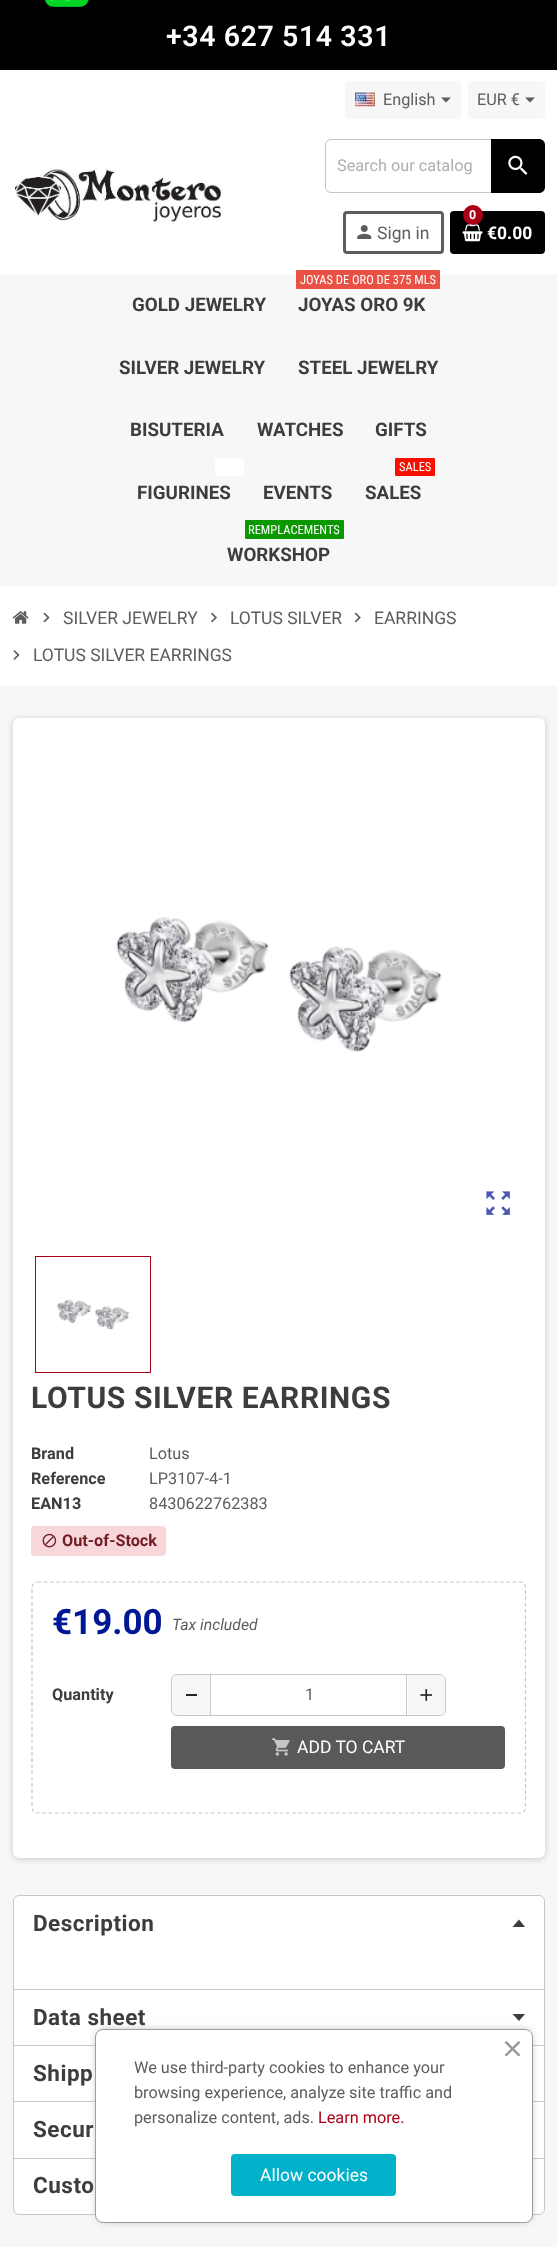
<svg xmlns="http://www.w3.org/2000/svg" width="557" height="2247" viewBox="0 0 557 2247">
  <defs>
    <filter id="blur1" x="-50%" y="-200%" width="200%" height="500%"><feGaussianBlur stdDeviation="3"/></filter>
    <filter id="blur2" x="-50%" y="-200%" width="200%" height="500%"><feGaussianBlur stdDeviation="4.5"/></filter>
  </defs>
  <rect width="100%" height="100%" fill="#ffffff"/>
  <rect x="0" y="0" width="557" height="70" fill="#000000"/>
  <image x="45" y="0" width="44" height="7" href="img1.png"/>
  <text x="166" y="46" font-family="Roboto" font-size="28.5" font-weight="600" letter-spacing="0.6" fill="#ffffff">+34 627 514 331</text>
  <rect x="345" y="81" width="116" height="38" rx="4" fill="#f7f7f7"/>
  <image x="355" y="92" width="20" height="15" href="img2.png"/>
  <text x="383" y="105" font-family="Roboto" font-size="16.25" fill="#5d5d5d">English</text>
  <path d="M441 97.5H451L446 102.5Z" fill="#5d5d5d"/>
  <rect x="468" y="81" width="77" height="38" rx="4" fill="#f7f7f7"/>
  <text x="477" y="105" font-family="Roboto" font-size="16.25" fill="#5d5d5d">EUR €</text>
  <path d="M525 97.5H535L530 102.5Z" fill="#5d5d5d"/>
  <image x="13" y="167" width="210" height="57" href="img3.png"/>
  <rect x="325.5" y="139.5" width="218" height="53" rx="5.5" fill="none" stroke="#c7c7c7"/>
  <text x="337" y="171" font-family="Roboto" font-size="16.25" fill="#aeaeae">Search our catalog</text>
  <path d="M491 139H539C542.5 139 545 141.5 545 145V187C545 190.5 542.5 193 539 193H491Z" fill="#000000"/>
  <image x="508" y="155" width="20" height="20" href="img4.png"/>
  <rect x="344.5" y="212.5" width="98" height="40" rx="2.5" fill="none" stroke="#5d5d5d" stroke-width="3"/>
  <image x="357" y="225" width="15" height="14" href="img5.png"/>
  <text x="377" y="239" font-family="Roboto" font-size="17.5" fill="#5d5d5d">Sign in</text>
  <rect x="450" y="211" width="95" height="43" rx="4" fill="#000000"/>
  <image x="462" y="224" width="21" height="18" href="img6.png"/>
  <circle cx="473" cy="215" r="10" fill="#ab0016"/>
  <text x="469" y="219" font-family="Roboto" font-size="12.5" font-weight="bold" fill="#ffffff">0</text>
  <text x="487" y="239" font-family="Roboto" font-size="17.5" font-weight="bold" fill="#ffffff">€0.00</text>
  <rect x="0" y="274" width="557" height="312" fill="#f7f7f7"/>
  <text x="132" y="311" font-family="'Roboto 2'" font-size="18.75" font-weight="bold" fill="#3d3d3d">GOLD JEWELRY</text>
  <rect x="296" y="270" width="144" height="19" rx="1" fill="#e95144"/>
  <text x="300" y="284" font-family="Roboto Condensed" font-size="12.5" fill="#ffffff">JOYAS DE ORO DE 375 MLS</text>
  <text x="298" y="311" font-family="'Roboto 2'" font-size="18.75" font-weight="bold" fill="#3d3d3d">JOYAS ORO 9K</text>
  <text x="119" y="374" font-family="'Roboto 2'" font-size="18.75" font-weight="bold" fill="#3d3d3d">SILVER JEWELRY</text>
  <text x="298" y="374" font-family="'Roboto 2'" font-size="18.75" font-weight="bold" fill="#3d3d3d">STEEL JEWELRY</text>
  <text x="130" y="436" font-family="'Roboto 2'" font-size="18.75" font-weight="bold" fill="#3d3d3d">BISUTERIA</text>
  <text x="257" y="436" font-family="'Roboto 2'" font-size="18.75" font-weight="bold" fill="#3d3d3d">WATCHES</text>
  <text x="375" y="436" font-family="'Roboto 2'" font-size="18.75" font-weight="bold" fill="#3d3d3d">GIFTS</text>
  <rect x="215" y="458" width="29" height="18" rx="1" fill="#ffffff"/>
  <text x="137" y="499" font-family="'Roboto 2'" font-size="18.75" font-weight="bold" fill="#3d3d3d">FIGURINES</text>
  <text x="263" y="499" font-family="'Roboto 2'" font-size="18.75" font-weight="bold" fill="#3d3d3d">EVENTS</text>
  <rect x="395" y="458" width="40" height="18" rx="1" fill="#f71000"/>
  <text x="399" y="471" font-family="Roboto Condensed" font-size="12.5" fill="#ffffff">SALES</text>
  <text x="365" y="499" font-family="'Roboto 2'" font-size="18.75" font-weight="bold" fill="#3d3d3d">SALES</text>
  <rect x="245" y="520" width="99" height="19" rx="1" fill="#0a9700"/>
  <text x="248" y="534" font-family="Roboto Condensed" font-size="12.5" fill="#ffffff">REMPLACEMENTS</text>
  <text x="227" y="561" font-family="'Roboto 2'" font-size="18.75" font-weight="bold" fill="#3d3d3d">WORKSHOP</text>
  <rect x="0" y="686" width="557" height="1561" fill="#f7f7f7"/>
  <image x="12" y="611" width="17" height="13" href="img7.png"/>
  <image x="43" y="612" width="7" height="11" href="img8.png"/>
  <text x="63" y="624" font-family="Roboto" font-size="17.5" fill="#5d5d5d">SILVER JEWELRY</text>
  <image x="211" y="612" width="6" height="11" href="img9.png"/>
  <text x="230" y="624" font-family="Roboto" font-size="17.5" fill="#5d5d5d">LOTUS SILVER</text>
  <image x="354" y="612" width="7" height="11" href="img10.png"/>
  <text x="374" y="624" font-family="Roboto" font-size="17.5" fill="#5d5d5d">EARRINGS</text>
  <image x="13" y="650" width="7" height="10" href="img11.png"/>
  <text x="33" y="661" font-family="Roboto" font-size="17.5" fill="#5d5d5d">LOTUS SILVER EARRINGS</text>
  <rect x="13" y="719" width="532" height="1140" rx="6" fill="#000000" fill-opacity="0.2" filter="url(#blur1)"/>
  <rect x="13" y="718" width="532" height="1140" rx="6" fill="#ffffff"/>
  <image x="116" y="917" width="326" height="135" href="img12.png"/>
  <image x="486" y="1191" width="24" height="24" href="img13.png"/>
  <rect x="35.5" y="1256.5" width="115" height="116" fill="none" stroke="#ab0016"/>
  <image x="56" y="1299" width="74" height="31" href="img14.png"/>
  <text x="31" y="1408" font-family="'Roboto 2'" font-size="30" font-weight="bold" letter-spacing="0.6" fill="#3d3d3d">LOTUS SILVER EARRINGS</text>
  <text x="31" y="1459" font-family="Roboto" font-size="16.25" font-weight="bold" fill="#3d3d3d">Brand</text>
  <text x="149" y="1459" font-family="Roboto" font-size="16.25" fill="#5d5d5d">Lotus</text>
  <text x="31" y="1484" font-family="Roboto" font-size="16.25" font-weight="bold" fill="#3d3d3d">Reference</text>
  <text x="149" y="1484" font-family="Roboto" font-size="16.25" fill="#5d5d5d">LP3107-4-1</text>
  <text x="31" y="1509" font-family="Roboto" font-size="16.25" font-weight="bold" fill="#3d3d3d">EAN13</text>
  <text x="149" y="1509" font-family="Roboto" font-size="16.25" fill="#5d5d5d">8430622762383</text>
  <rect x="31" y="1526" width="135" height="30" rx="4" fill="#f8d7da"/>
  <image x="42" y="1533" width="15" height="15" href="img15.png"/>
  <text x="62" y="1546" font-family="Roboto" font-size="16.25" font-weight="bold" fill="#721c24">Out-of-Stock</text>
  <path d="M37.5 1582H520C523 1582 525.5 1584.5 525.5 1587.5V1807.5C525.5 1810.5 523 1813 520 1813H37.5C34.5 1813 32 1810.5 32 1807.5V1587.5C32 1584.5 34.5 1582 37.5 1582Z" fill="none" stroke="#c7c7c7" stroke-width="1.2" stroke-dasharray="3.75 2.5"/>
  <text x="52" y="1634" font-family="Roboto" font-size="35" font-weight="bold" fill="#001894">€19.00</text>
  <text x="172" y="1630" font-family="Roboto" font-size="15.75" font-style="italic" fill="#5d5d5d">Tax included</text>
  <text x="52" y="1700" font-family="Roboto" font-size="16.25" font-weight="bold" fill="#3d3d3d">Quantity</text>
  <rect x="171.5" y="1674.5" width="274" height="41" rx="5.5" fill="none" stroke="#c7c7c7"/>
  <path d="M178 1675H210V1715H178C175 1715 173 1713 173 1710V1680C173 1677 175 1675 178 1675Z" fill="#f7f7f7"/>
  <rect x="186" y="1694" width="11" height="2" fill="#212529"/>
  <rect x="406" y="1675" width="1" height="40" fill="#c7c7c7"/>
  <rect x="210" y="1675" width="1" height="40" fill="#c7c7c7"/>
  <text x="305" y="1700" font-family="Roboto" font-size="16.25" fill="#5d5d5d">1</text>
  <path d="M408 1675H440C443 1675 445 1677 445 1680V1710C445 1713 443 1715 440 1715H408Z" fill="#f7f7f7"/>
  <image x="420" y="1689" width="13" height="12" href="img16.png"/>
  <rect x="171" y="1726" width="334" height="43" rx="4" fill="#595959"/>
  <image x="272" y="1738" width="18" height="18" href="img17.png"/>
  <text x="297" y="1753" font-family="Roboto" font-size="17.5" fill="#ffffff">ADD TO CART</text>
  <rect x="13.5" y="1895.5" width="531" height="319" rx="5.5" fill="#ffffff" stroke="#c7c7c7"/>
  <text x="33" y="1931" font-family="'Roboto 2'" font-size="22.5" font-weight="bold" letter-spacing="0.5" fill="#3d3d3d">Description</text>
  <path d="M525 1927H512.5L519 1919.5Z" fill="#3d3d3d"/>
  <rect x="14" y="1989" width="530" height="1" fill="#c7c7c7"/>
  <text x="33" y="2025" font-family="'Roboto 2'" font-size="22.5" font-weight="bold" letter-spacing="0.5" fill="#3d3d3d">Data sheet</text>
  <path d="M512.5 2014H525L519 2021Z" fill="#3d3d3d"/>
  <rect x="14" y="2045" width="530" height="1" fill="#c7c7c7"/>
  <text x="33" y="2081" font-family="'Roboto 2'" font-size="22.5" font-weight="bold" letter-spacing="0.5" fill="#3d3d3d">Shipp</text>
  <rect x="14" y="2101" width="530" height="1" fill="#c7c7c7"/>
  <text x="33" y="2137" font-family="'Roboto 2'" font-size="22.5" font-weight="bold" letter-spacing="0.5" fill="#3d3d3d">Secur</text>
  <rect x="14" y="2158" width="530" height="1" fill="#c7c7c7"/>
  <text x="33" y="2193" font-family="'Roboto 2'" font-size="22.5" font-weight="bold" letter-spacing="0.5" fill="#3d3d3d">Custo</text>
  <rect x="98" y="2031" width="432" height="189" rx="5" fill="#9e9e9e" filter="url(#blur2)"/>
  <rect x="95.5" y="2029.5" width="437" height="193" rx="7.5" fill="#ffffff" stroke="#9e9e9e"/>
  <path d="M504.5 2055L518.5 2041L520.5 2042.5L506.5 2056.5Z" fill="#999999"/>
  <path d="M506.5 2041L520.5 2055L518.5 2056.5L504.5 2042.5Z" fill="#999999"/>
  <text x="134" y="2073" font-family="Roboto" font-size="16.25" fill="#5d5d5d">We use third-party cookies to enhance your</text>
  <text x="134" y="2098" font-family="Roboto" font-size="16.25" fill="#5d5d5d">browsing experience, analyze site traffic and</text>
  <text x="134" y="2123" font-family="Roboto" font-size="16.25" fill="#5d5d5d">personalize content, ads.</text>
  <text x="318" y="2123" font-family="Roboto" font-size="16.25" fill="#ab0016">Learn more.</text>
  <rect x="231" y="2154" width="165" height="42" rx="4" fill="#00b1c9"/>
  <text x="260" y="2181" font-family="Roboto" font-size="17.5" fill="#ffffff">Allow cookies</text>
</svg>
